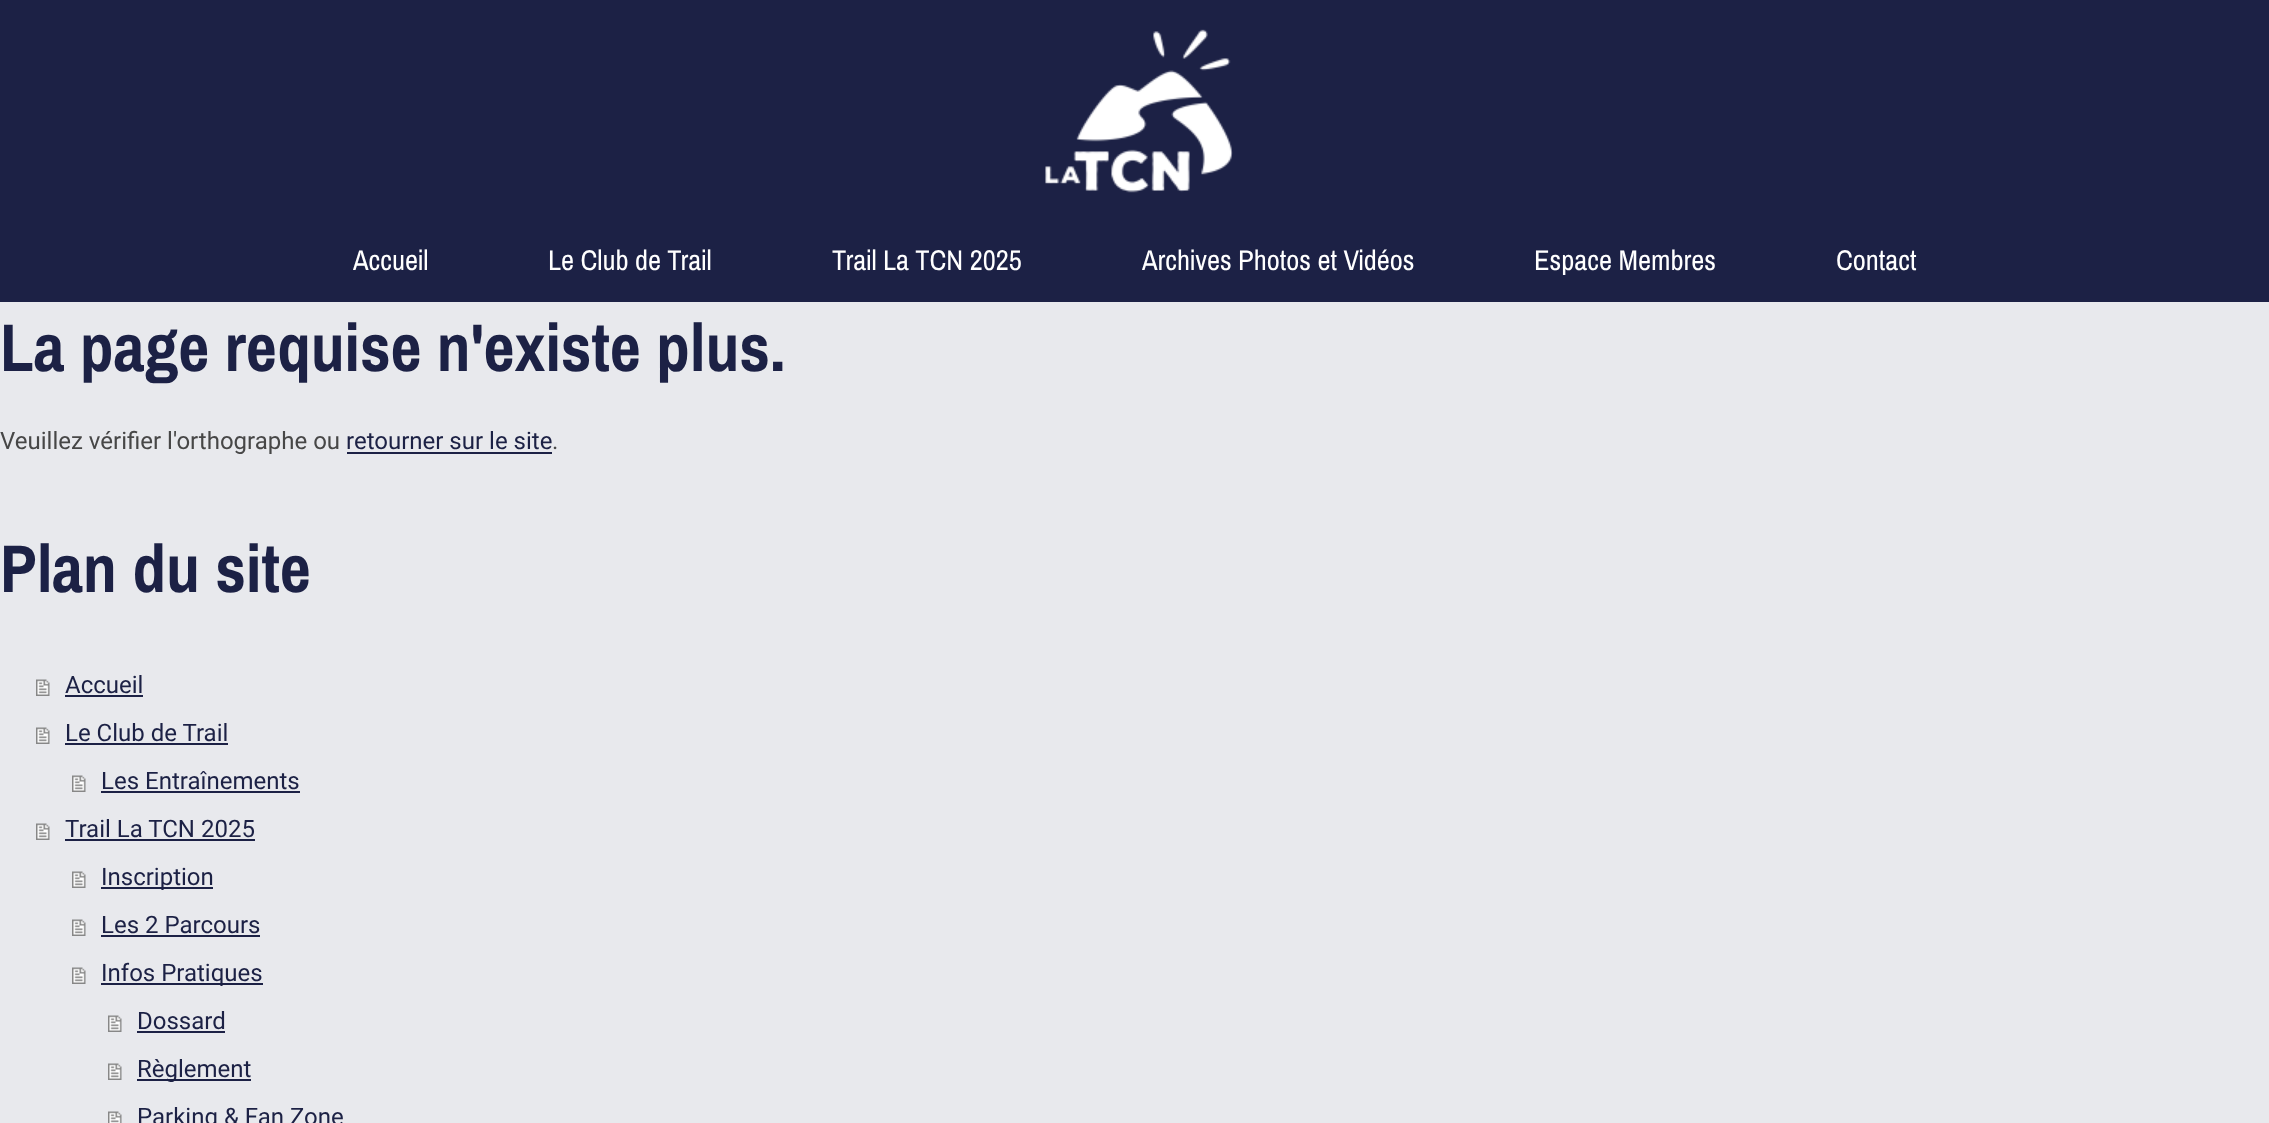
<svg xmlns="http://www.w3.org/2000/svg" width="2269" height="1123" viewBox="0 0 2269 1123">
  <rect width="100%" height="100%" fill="#1c2145"/>
  <image x="1045" y="29" width="188" height="164" href="img1.png"/>
  <text x="353" y="270" font-family="Archivo Narrow" font-size="28.5" fill="#ffffff">Accueil</text>
  <text x="548" y="270" font-family="Archivo Narrow" font-size="28.5" fill="#ffffff">Le Club de Trail</text>
  <text x="832" y="270" font-family="Archivo Narrow" font-size="28.5" fill="#ffffff">Trail La TCN 2025</text>
  <text x="1142" y="270" font-family="Archivo Narrow" font-size="28.5" fill="#ffffff">Archives Photos et Vidéos</text>
  <text x="1534" y="270" font-family="Archivo Narrow" font-size="28.5" fill="#ffffff">Espace Membres</text>
  <text x="1836" y="270" font-family="Archivo Narrow" font-size="28.5" fill="#ffffff">Contact</text>
  <rect x="0" y="302" width="2269" height="821" fill="#e8e9ed"/>
  <text x="0" y="371" font-family="Archivo Narrow" font-size="67.5" font-weight="bold" fill="#1c2145">La page requise n'existe plus.</text>
  <text x="0" y="449" font-family="Roboto" font-size="24" fill="#474747">Veuillez vérifier l'orthographe ou</text>
  <text x="346" y="449" font-family="Roboto" font-size="24" fill="#1c2145">retourner sur le site</text>
  <rect x="347" y="452" width="205" height="2" fill="#1c2145"/>
  <text x="552" y="449" font-family="Roboto" font-size="24" fill="#474747">.</text>
  <text x="0" y="592" font-family="Archivo Narrow" font-size="67.5" font-weight="bold" fill="#1c2145">Plan du site</text>
  <image x="36" y="679" width="14" height="17" href="img2.png"/>
  <text x="65" y="693" font-family="Roboto" font-size="24" fill="#1c2145">Accueil</text>
  <rect x="65" y="695" width="78" height="2" fill="#1c2145"/>
  <image x="36" y="727" width="14" height="17" href="img2.png"/>
  <text x="65" y="741" font-family="Roboto" font-size="24" fill="#1c2145">Le Club de Trail</text>
  <rect x="65" y="743" width="163" height="2" fill="#1c2145"/>
  <image x="72" y="775" width="14" height="17" href="img2.png"/>
  <text x="101" y="789" font-family="Roboto" font-size="24" fill="#1c2145">Les Entraînements</text>
  <rect x="101" y="791" width="199" height="2" fill="#1c2145"/>
  <image x="36" y="823" width="14" height="17" href="img2.png"/>
  <text x="65" y="837" font-family="Roboto" font-size="24" fill="#1c2145">Trail La TCN 2025</text>
  <rect x="65" y="839" width="190" height="2" fill="#1c2145"/>
  <image x="72" y="871" width="14" height="17" href="img2.png"/>
  <rect x="101" y="887" width="112" height="2" fill="#1c2145"/>
  <text x="101" y="885" font-family="Roboto" font-size="24" fill="#1c2145">Inscription</text>
  <image x="72" y="919" width="14" height="17" href="img2.png"/>
  <text x="101" y="933" font-family="Roboto" font-size="24" fill="#1c2145">Les 2 Parcours</text>
  <rect x="101" y="935" width="159" height="2" fill="#1c2145"/>
  <image x="72" y="967" width="14" height="17" href="img2.png"/>
  <rect x="101" y="983" width="162" height="2" fill="#1c2145"/>
  <text x="101" y="981" font-family="Roboto" font-size="24" fill="#1c2145">Infos Pratiques</text>
  <image x="108" y="1015" width="14" height="17" href="img2.png"/>
  <text x="137" y="1029" font-family="Roboto" font-size="24" fill="#1c2145">Dossard</text>
  <rect x="137" y="1031" width="88" height="2" fill="#1c2145"/>
  <image x="108" y="1063" width="14" height="17" href="img2.png"/>
  <rect x="137" y="1079" width="114" height="2" fill="#1c2145"/>
  <text x="137" y="1077" font-family="Roboto" font-size="24" fill="#1c2145">Règlement</text>
  <image x="108" y="1111" width="14" height="12" href="img3.png"/>
  <text x="137" y="1125" font-family="Roboto" font-size="24" fill="#1c2145">Parking &amp; Fan Zone</text>
</svg>
